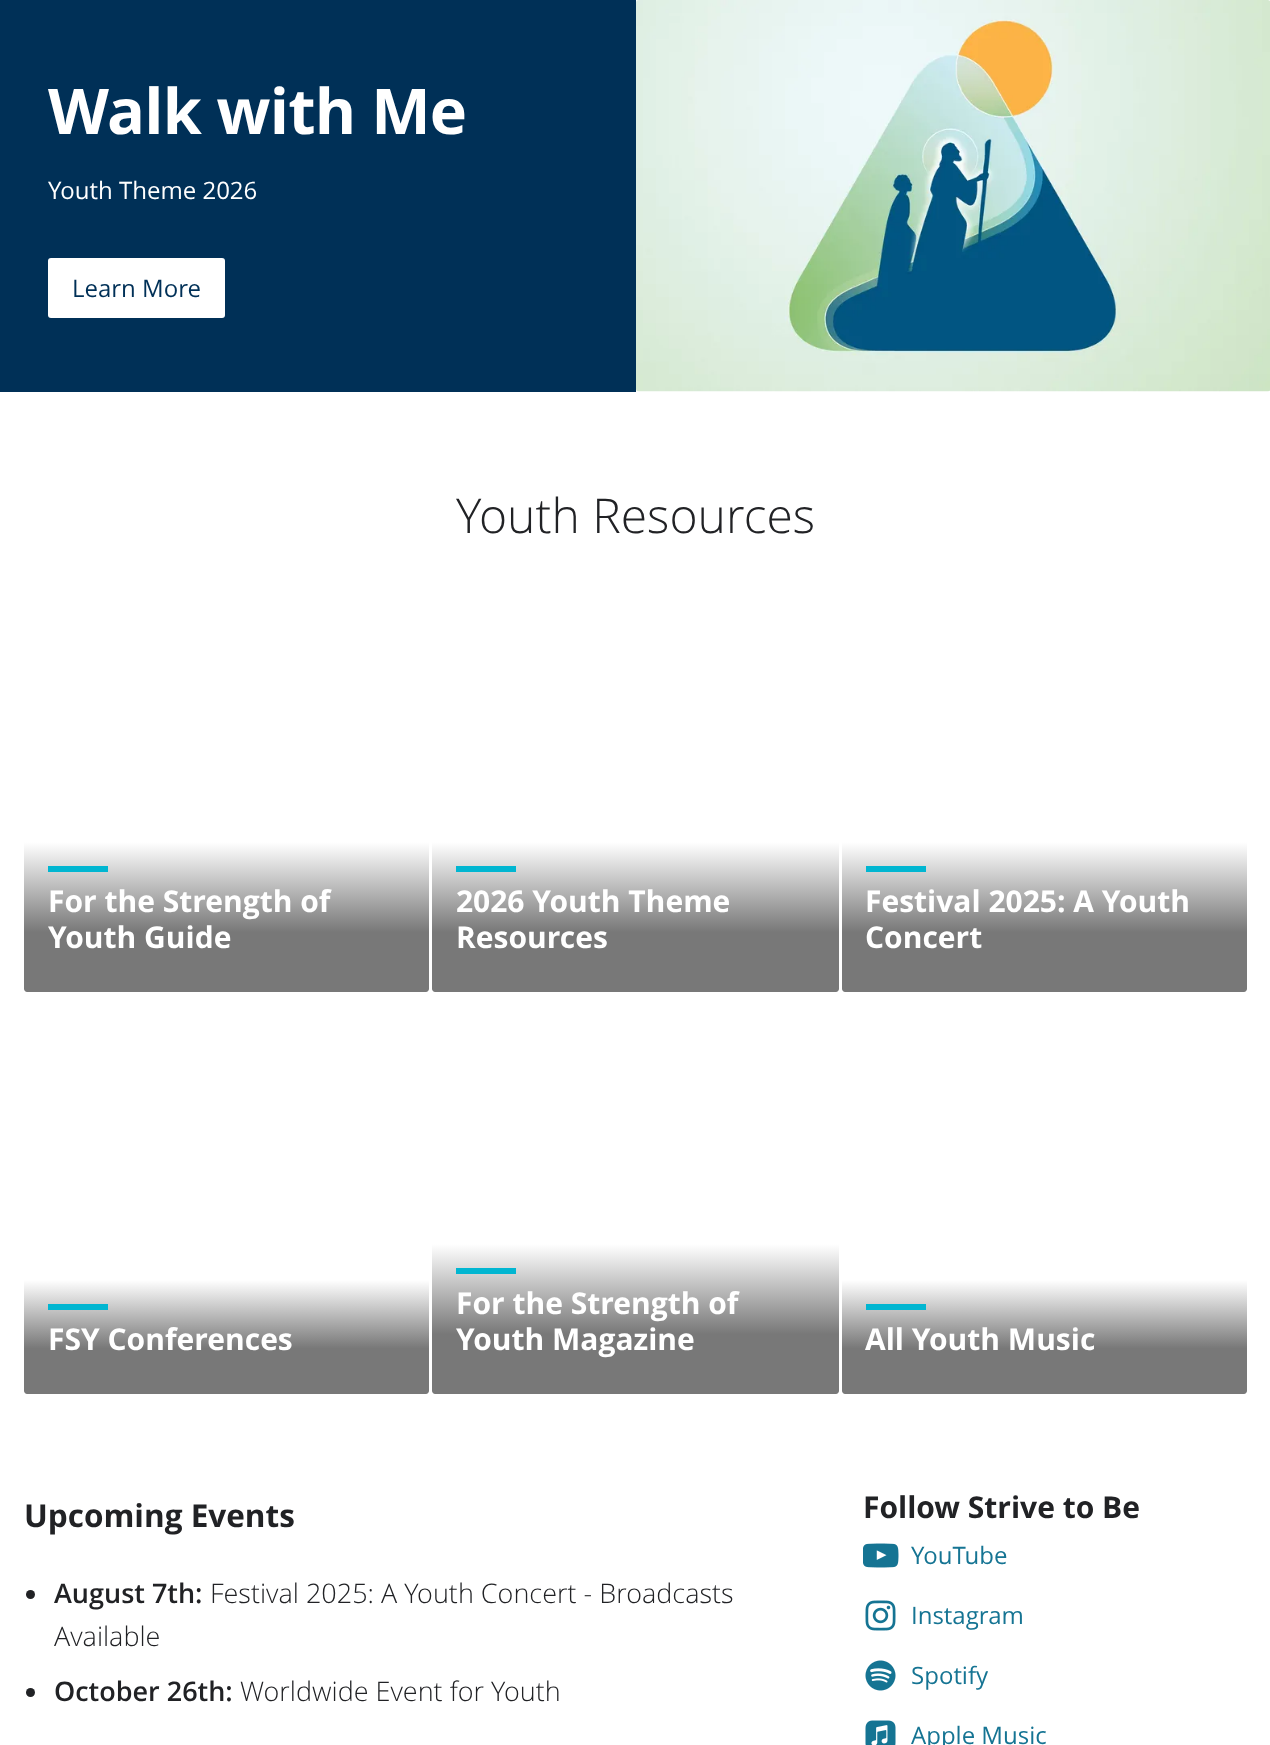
<svg xmlns="http://www.w3.org/2000/svg" width="1270" height="1745" viewBox="0 0 1270 1745">
  <defs>
    <linearGradient id="g1" gradientUnits="userSpaceOnUse" x1="227" y1="992" x2="227" y2="878"><stop offset="0" stop-color="#a4a4a4"/><stop offset="0.32" stop-color="#ffffff"/></linearGradient>
    <linearGradient id="g2" gradientUnits="userSpaceOnUse" x1="227" y1="992" x2="227" y2="878"><stop offset="0" stop-color="#797979"/><stop offset="0.32" stop-color="#ffffff"/></linearGradient>
    <linearGradient id="g3" gradientUnits="userSpaceOnUse" x1="635" y1="992" x2="635" y2="878"><stop offset="0" stop-color="#a5a5a5"/><stop offset="0.32" stop-color="#ffffff"/></linearGradient>
    <linearGradient id="g4" gradientUnits="userSpaceOnUse" x1="635" y1="992" x2="635" y2="878"><stop offset="0" stop-color="#787878"/><stop offset="0.32" stop-color="#ffffff"/></linearGradient>
    <linearGradient id="g5" gradientUnits="userSpaceOnUse" x1="1044" y1="992" x2="1044" y2="878"><stop offset="0" stop-color="#a5a5a5"/><stop offset="0.32" stop-color="#ffffff"/></linearGradient>
    <linearGradient id="g6" gradientUnits="userSpaceOnUse" x1="1044" y1="992" x2="1044" y2="878"><stop offset="0" stop-color="#787878"/><stop offset="0.32" stop-color="#ffffff"/></linearGradient>
    <linearGradient id="g7" gradientUnits="userSpaceOnUse" x1="227" y1="1394" x2="227" y2="1316"><stop offset="0" stop-color="#888888"/><stop offset="0.46" stop-color="#ffffff"/></linearGradient>
    <linearGradient id="g8" gradientUnits="userSpaceOnUse" x1="635" y1="1394" x2="635" y2="1280"><stop offset="0" stop-color="#a4a4a4"/><stop offset="0.32" stop-color="#ffffff"/></linearGradient>
    <linearGradient id="g9" gradientUnits="userSpaceOnUse" x1="635" y1="1394" x2="635" y2="1280"><stop offset="0" stop-color="#787878"/><stop offset="0.32" stop-color="#ffffff"/></linearGradient>
    <linearGradient id="g10" gradientUnits="userSpaceOnUse" x1="1044" y1="1394" x2="1044" y2="1316"><stop offset="0" stop-color="#888888"/><stop offset="0.46" stop-color="#ffffff"/></linearGradient>
    <linearGradient id="g11" gradientUnits="userSpaceOnUse" x1="227" y1="992" x2="227" y2="842"><stop offset="0" stop-color="#787878"/><stop offset="0.4" stop-color="#787878"/><stop offset="1" stop-color="#ffffff"/></linearGradient>
    <linearGradient id="g12" gradientUnits="userSpaceOnUse" x1="635" y1="992" x2="635" y2="842"><stop offset="0" stop-color="#787878"/><stop offset="0.4" stop-color="#787878"/><stop offset="1" stop-color="#ffffff"/></linearGradient>
    <linearGradient id="g13" gradientUnits="userSpaceOnUse" x1="1044" y1="992" x2="1044" y2="842"><stop offset="0" stop-color="#787878"/><stop offset="0.4" stop-color="#787878"/><stop offset="1" stop-color="#ffffff"/></linearGradient>
    <linearGradient id="g14" gradientUnits="userSpaceOnUse" x1="227" y1="1394" x2="227" y2="1280"><stop offset="0" stop-color="#787878"/><stop offset="0.4" stop-color="#787878"/><stop offset="1" stop-color="#ffffff"/></linearGradient>
    <linearGradient id="g15" gradientUnits="userSpaceOnUse" x1="635" y1="1394" x2="635" y2="1244"><stop offset="0" stop-color="#787878"/><stop offset="0.4" stop-color="#787878"/><stop offset="1" stop-color="#ffffff"/></linearGradient>
    <linearGradient id="g16" gradientUnits="userSpaceOnUse" x1="1044" y1="1394" x2="1044" y2="1280"><stop offset="0" stop-color="#787878"/><stop offset="0.4" stop-color="#787878"/><stop offset="1" stop-color="#ffffff"/></linearGradient>
  </defs>
  <rect width="100%" height="100%" fill="#ffffff"/>
  <rect x="0" y="0" width="636" height="392" fill="#003057"/>
  <text x="48" y="134" font-family="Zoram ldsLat" font-size="63" font-weight="bold" letter-spacing="-0.75" fill="#ffffff">Walk with Me</text>
  <text x="48" y="199" font-family="Zoram ldsLat" font-size="24" fill="#ffffff">Youth Theme 2026</text>
  <rect x="48" y="258" width="177" height="60" rx="3" fill="#ffffff"/>
  <text x="72" y="297" font-family="Zoram ldsLat" font-size="24" fill="#003057">Learn More</text>
  <image x="636" y="0" width="634" height="392" href="img1.png"/>
  <text x="456" y="533" font-family="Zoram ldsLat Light" font-size="48" font-weight="300" fill="#212225">Youth Resources</text>
  <path d="M24 842H429V989C429 990.5 427.5 992 426 992H27C25.5 992 24 990.5 24 989Z" fill="url(#g11)"/>
  <rect x="48" y="866" width="60" height="6" fill="#01b6d1"/>
  <text x="48" y="912" font-family="Zoram ldsLat" font-size="30" font-weight="bold" fill="url(#g1)">For the Strength of</text>
  <text x="48" y="948" font-family="Zoram ldsLat" font-size="30" font-weight="bold" fill="url(#g2)">Youth Guide</text>
  <path d="M432 842H839V989C839 990.5 837.5 992 836 992H435C433.5 992 432 990.5 432 989Z" fill="url(#g12)"/>
  <rect x="456" y="866" width="60" height="6" fill="#01b6d1"/>
  <text x="456" y="912" font-family="Zoram ldsLat" font-size="30" font-weight="bold" fill="url(#g3)">2026 Youth Theme</text>
  <text x="456" y="948" font-family="Zoram ldsLat" font-size="30" font-weight="bold" fill="url(#g4)">Resources</text>
  <path d="M842 842H1247V989C1247 990.5 1245.5 992 1244 992H845C843.5 992 842 990.5 842 989Z" fill="url(#g13)"/>
  <rect x="866" y="866" width="60" height="6" fill="#01b6d1"/>
  <text x="865" y="912" font-family="Zoram ldsLat" font-size="30" font-weight="bold" fill="url(#g5)">Festival 2025: A Youth</text>
  <text x="865" y="948" font-family="Zoram ldsLat" font-size="30" font-weight="bold" fill="url(#g6)">Concert</text>
  <path d="M24 1280H429V1391C429 1392.5 427.5 1394 426 1394H27C25.5 1394 24 1392.5 24 1391Z" fill="url(#g14)"/>
  <rect x="48" y="1304" width="60" height="6" fill="#01b6d1"/>
  <text x="48" y="1350" font-family="Zoram ldsLat" font-size="30" font-weight="bold" fill="url(#g7)">FSY Conferences</text>
  <path d="M432 1244H839V1391C839 1392.5 837.5 1394 836 1394H435C433.5 1394 432 1392.5 432 1391Z" fill="url(#g15)"/>
  <rect x="456" y="1268" width="60" height="6" fill="#01b6d1"/>
  <text x="456" y="1314" font-family="Zoram ldsLat" font-size="30" font-weight="bold" fill="url(#g8)">For the Strength of</text>
  <text x="456" y="1350" font-family="Zoram ldsLat" font-size="30" font-weight="bold" fill="url(#g9)">Youth Magazine</text>
  <path d="M842 1280H1247V1391C1247 1392.5 1245.5 1394 1244 1394H845C843.5 1394 842 1392.5 842 1391Z" fill="url(#g16)"/>
  <rect x="866" y="1304" width="60" height="6" fill="#01b6d1"/>
  <text x="865" y="1350" font-family="Zoram ldsLat" font-size="30" font-weight="bold" fill="url(#g10)">All Youth Music</text>
  <text x="24" y="1527" font-family="Zoram ldsLat" font-size="31.5" font-weight="bold" fill="#212225">Upcoming Events</text>
  <circle cx="30.5" cy="1594.5" r="4.5" fill="#212225"/>
  <text x="54" y="1603" font-family="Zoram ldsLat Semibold" font-size="27" font-weight="600" fill="#212225">August 7th:</text>
  <text x="210" y="1603" font-family="Zoram ldsLat Light" font-size="27" font-weight="300" fill="#212225">Festival 2025: A Youth Concert - Broadcasts</text>
  <text x="54" y="1646" font-family="Zoram ldsLat Light" font-size="27" font-weight="300" fill="#212225">Available</text>
  <circle cx="30.5" cy="1692.5" r="4.5" fill="#212225"/>
  <text x="54" y="1701" font-family="Zoram ldsLat Semibold" font-size="27" font-weight="600" fill="#212225">October 26th:</text>
  <text x="240" y="1701" font-family="Zoram ldsLat Light" font-size="27" font-weight="300" fill="#212225">Worldwide Event for Youth</text>
  <text x="863" y="1518" font-family="Zoram ldsLat" font-size="30" font-weight="bold" fill="#212225">Follow Strive to Be</text>
  <image x="863" y="1543" width="36" height="25" href="img2.png"/>
  <text x="911" y="1564" font-family="Zoram ldsLat" font-size="24" fill="#157493">YouTube</text>
  <image x="865" y="1600" width="31" height="31" href="img3.png"/>
  <text x="911" y="1624" font-family="Zoram ldsLat" font-size="24" fill="#157493">Instagram</text>
  <image x="865" y="1660" width="31" height="31" href="img4.png"/>
  <text x="911" y="1684" font-family="Zoram ldsLat" font-size="24" fill="#157493">Spotify</text>
  <image x="865" y="1720" width="31" height="25" href="img5.png"/>
  <text x="911" y="1744" font-family="Zoram ldsLat" font-size="24" fill="#157493">Apple Music</text>
</svg>
